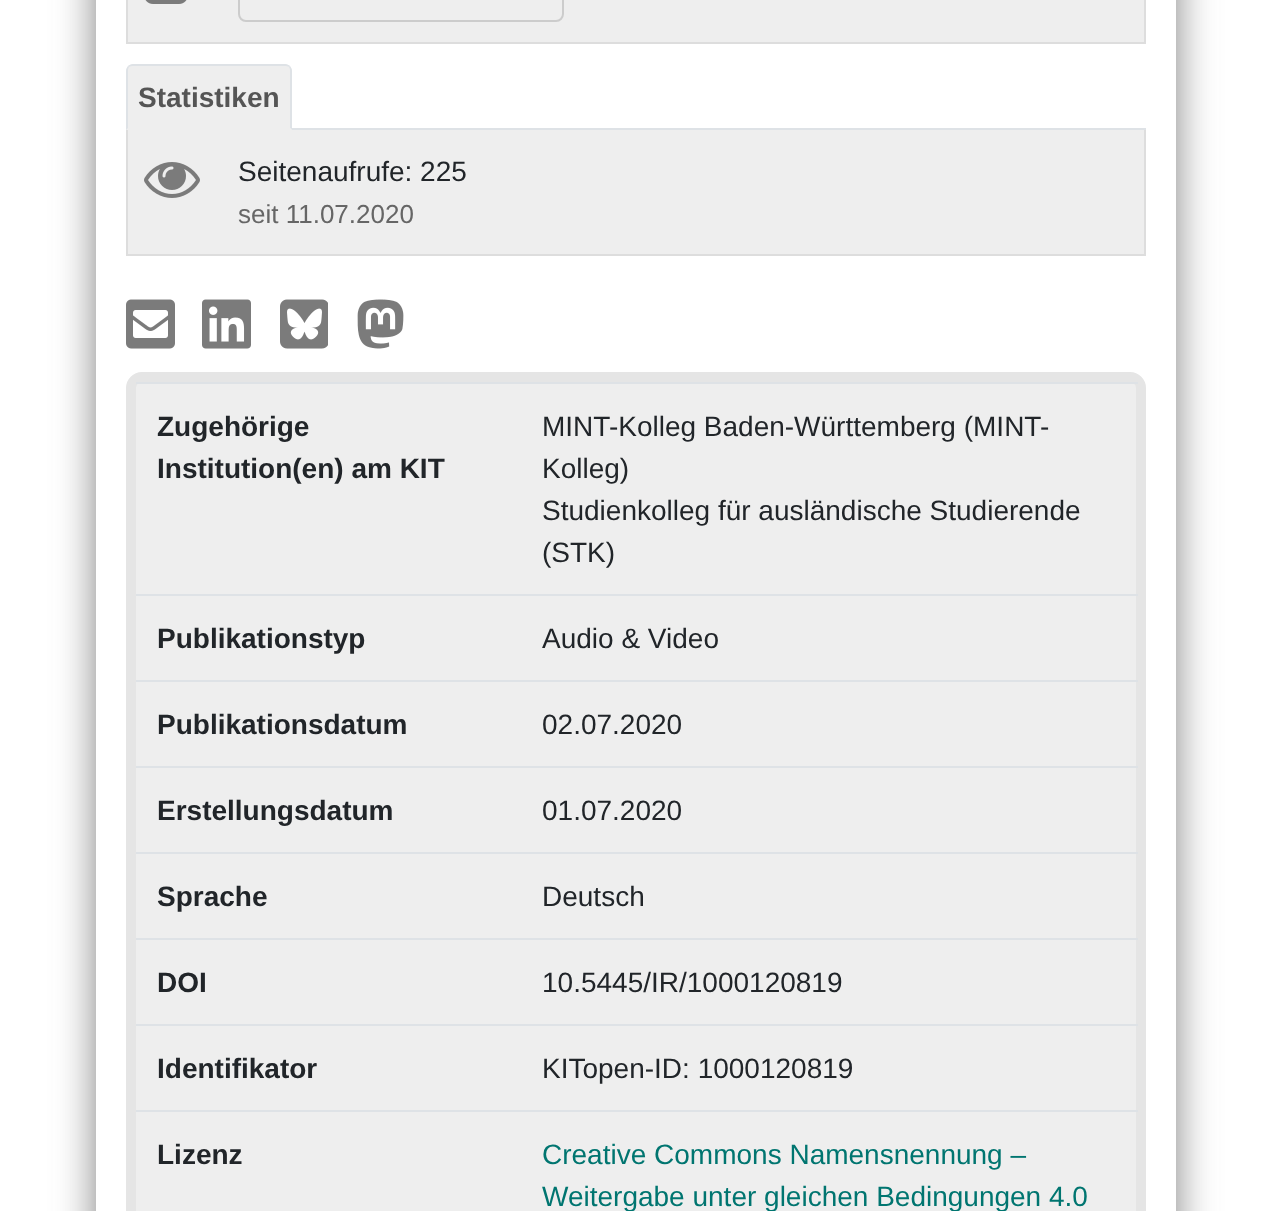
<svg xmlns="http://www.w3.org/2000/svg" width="1271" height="1211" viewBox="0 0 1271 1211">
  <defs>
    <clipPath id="clip1"><path d="M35 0H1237V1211H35ZM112-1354H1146C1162.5-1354 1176-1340.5 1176-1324V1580C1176 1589 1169 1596 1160 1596H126C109.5 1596 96 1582.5 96 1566V-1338C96-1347 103-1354 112-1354Z" clip-rule="evenodd"/></clipPath>
    <filter id="blur1" x="-50%" y="-200%" width="200%" height="500%"><feGaussianBlur stdDeviation="20"/></filter>
  </defs>
  <rect width="100%" height="100%" fill="#ffffff"/>
  <g clip-path="url(#clip1)">
    <rect x="96" y="-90" width="1080" height="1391" rx="30" fill="#808080" filter="url(#blur1)"/>
  </g>
  <rect x="128" y="0" width="1016" height="42" fill="#eeeeee"/>
  <rect x="1144" y="0" width="2" height="44" fill="#dddddd"/>
  <rect x="126" y="42" width="1020" height="2" fill="#dddddd"/>
  <rect x="126" y="0" width="2" height="44" fill="#dddddd"/>
  <image x="145" y="0" width="42" height="4" href="img1.png"/>
  <rect x="239" y="-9" width="324" height="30" rx="7" fill="none" stroke="#cccccc" stroke-width="2"/>
  <rect x="292" y="128" width="854" height="2" fill="#dee2e6"/>
  <path d="M134 64H284C288.5 64 292 67.5 292 72V130H126V72C126 67.5 129.5 64 134 64Z" fill="#eeeeee"/>
  <path d="M133 64C131 64 129 65 128 66L129 67C130 66 132 66 133 66H285C286 66 288 66 289 67L290 66C289 65 287 64 285 64Z" fill="#dee2e6"/>
  <path d="M292 130V71C292 69 291 67 290 66L289 67C290 68 290 70 290 71V128Z" fill="#dee2e6"/>
  <path d="M292 130L290 128H128L126 130Z" fill="#eeeeee"/>
  <path d="M126 130L128 128V71C128 70 128 68 129 67L128 66C127 67 126 69 126 71Z" fill="#dee2e6"/>
  <text x="138" y="107" font-family="Liberation Sans" font-size="28" font-weight="bold" fill="#555555">Statistiken</text>
  <rect x="128" y="130" width="1016" height="124" fill="#eeeeee"/>
  <rect x="1144" y="130" width="2" height="126" fill="#dddddd"/>
  <rect x="126" y="254" width="1020" height="2" fill="#dddddd"/>
  <rect x="126" y="130" width="2" height="126" fill="#dddddd"/>
  <image x="144" y="162" width="56" height="36" href="img2.png"/>
  <text x="238" y="181" font-family="Liberation Sans" font-size="28" fill="#212529">Seitenaufrufe: 225</text>
  <text x="238" y="223" font-family="Liberation Sans" font-size="26" fill="#666666">seit 11.07.2020</text>
  <image x="126" y="299" width="49" height="50" href="img3.png"/>
  <image x="202" y="299" width="49" height="50" href="img4.png"/>
  <image x="280" y="299" width="48" height="50" href="img5.png"/>
  <image x="357" y="299" width="47" height="50" href="img6.png"/>
  <rect x="131" y="377" width="1010" height="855" rx="11" fill="#eeeeee" stroke="#e5e5e5" stroke-width="10"/>
  <text x="157" y="436" font-family="Liberation Sans" font-size="28" font-weight="bold" fill="#212529">Zugehörige</text>
  <text x="157" y="478" font-family="Liberation Sans" font-size="28" font-weight="bold" fill="#212529">Institution(en) am KIT</text>
  <rect x="136" y="382" width="1002" height="2" fill="#dee2e6"/>
  <text x="542" y="436" font-family="Liberation Sans" font-size="28" fill="#212529">MINT-Kolleg Baden-Württemberg (MINT-</text>
  <text x="542" y="478" font-family="Liberation Sans" font-size="28" fill="#212529">Kolleg)</text>
  <text x="542" y="520" font-family="Liberation Sans" font-size="28" fill="#212529">Studienkolleg für ausländische Studierende</text>
  <text x="542" y="562" font-family="Liberation Sans" font-size="28" fill="#212529">(STK)</text>
  <text x="157" y="648" font-family="Liberation Sans" font-size="28" font-weight="bold" fill="#212529">Publikationstyp</text>
  <rect x="136" y="594" width="1002" height="2" fill="#dee2e6"/>
  <text x="542" y="648" font-family="Liberation Sans" font-size="28" fill="#212529">Audio &amp; Video</text>
  <text x="157" y="734" font-family="Liberation Sans" font-size="28" font-weight="bold" fill="#212529">Publikationsdatum</text>
  <rect x="136" y="680" width="1002" height="2" fill="#dee2e6"/>
  <text x="542" y="734" font-family="Liberation Sans" font-size="28" fill="#212529">02.07.2020</text>
  <text x="157" y="820" font-family="Liberation Sans" font-size="28" font-weight="bold" fill="#212529">Erstellungsdatum</text>
  <rect x="136" y="766" width="1002" height="2" fill="#dee2e6"/>
  <text x="542" y="820" font-family="Liberation Sans" font-size="28" fill="#212529">01.07.2020</text>
  <text x="157" y="906" font-family="Liberation Sans" font-size="28" font-weight="bold" fill="#212529">Sprache</text>
  <rect x="136" y="852" width="1002" height="2" fill="#dee2e6"/>
  <text x="542" y="906" font-family="Liberation Sans" font-size="28" fill="#212529">Deutsch</text>
  <text x="157" y="992" font-family="Liberation Sans" font-size="28" font-weight="bold" fill="#212529">DOI</text>
  <rect x="136" y="938" width="1002" height="2" fill="#dee2e6"/>
  <text x="542" y="992" font-family="Liberation Sans" font-size="28" fill="#212529">10.5445/IR/1000120819</text>
  <text x="157" y="1078" font-family="Liberation Sans" font-size="28" font-weight="bold" fill="#212529">Identifikator</text>
  <rect x="136" y="1024" width="1002" height="2" fill="#dee2e6"/>
  <text x="542" y="1078" font-family="Liberation Sans" font-size="28" fill="#212529">KITopen-ID: 1000120819</text>
  <text x="157" y="1164" font-family="Liberation Sans" font-size="28" font-weight="bold" fill="#212529">Lizenz</text>
  <rect x="136" y="1110" width="1002" height="2" fill="#dee2e6"/>
  <text x="542" y="1164" font-family="Liberation Sans" font-size="28" fill="#007570">Creative Commons Namensnennung –</text>
  <text x="542" y="1206" font-family="Liberation Sans" font-size="28" fill="#007570">Weitergabe unter gleichen Bedingungen 4.0</text>
</svg>
